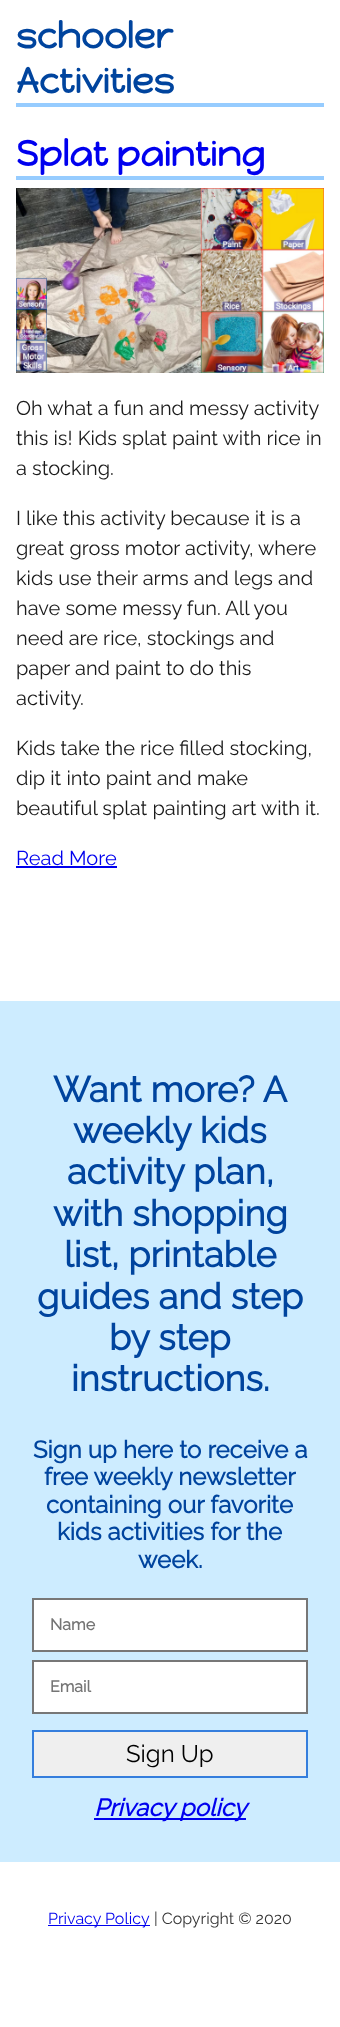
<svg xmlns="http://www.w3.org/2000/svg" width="340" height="2027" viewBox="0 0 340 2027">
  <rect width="100%" height="100%" fill="#ffffff"/>
  <rect x="16" y="103" width="308" height="4" fill="#96ccff"/>
  <text x="16" y="48" font-family="Happy Monkey" font-size="36" font-weight="bold" fill="#00449e">schooler</text>
  <text x="16" y="93" font-family="Happy Monkey" font-size="36" font-weight="bold" fill="#00449e">Activities</text>
  <rect x="16" y="176" width="308" height="4" fill="#96ccff"/>
  <text x="16" y="166" font-family="Happy Monkey" font-size="36" font-weight="bold" fill="#0000ee">Splat painting</text>
  <image x="16" y="188" width="308" height="185" href="img1.png"/>
  <text x="16" y="415" font-family="Raleway" font-size="20" font-weight="100" fill="#1a1a1a">Oh what a fun and messy activity</text>
  <text x="16" y="445" font-family="Raleway" font-size="20" font-weight="100" fill="#1a1a1a">this is! Kids splat paint with rice in</text>
  <text x="16" y="475" font-family="Raleway" font-size="20" font-weight="100" fill="#1a1a1a">a stocking.</text>
  <text x="16" y="525" font-family="Raleway" font-size="20" font-weight="100" fill="#1a1a1a">I like this activity because it is a</text>
  <text x="16" y="555" font-family="Raleway" font-size="20" font-weight="100" fill="#1a1a1a">great gross motor activity, where</text>
  <text x="16" y="585" font-family="Raleway" font-size="20" font-weight="100" fill="#1a1a1a">kids use their arms and legs and</text>
  <text x="16" y="615" font-family="Raleway" font-size="20" font-weight="100" fill="#1a1a1a">have some messy fun. All you</text>
  <text x="16" y="645" font-family="Raleway" font-size="20" font-weight="100" fill="#1a1a1a">need are rice, stockings and</text>
  <text x="16" y="675" font-family="Raleway" font-size="20" font-weight="100" fill="#1a1a1a">paper and paint to do this</text>
  <text x="16" y="705" font-family="Raleway" font-size="20" font-weight="100" fill="#1a1a1a">activity.</text>
  <text x="16" y="755" font-family="Raleway" font-size="20" font-weight="100" fill="#1a1a1a">Kids take the rice filled stocking,</text>
  <text x="16" y="785" font-family="Raleway" font-size="20" font-weight="100" fill="#1a1a1a">dip it into paint and make</text>
  <text x="16" y="815" font-family="Raleway" font-size="20" font-weight="100" fill="#1a1a1a">beautiful splat painting art with it.</text>
  <text x="16" y="865" font-family="Raleway" font-size="20" font-weight="100" fill="#0000ee">Read More</text>
  <rect x="16" y="866" width="101" height="2" fill="#0000ee"/>
  <rect x="0" y="1001" width="340" height="861" fill="#cdecff"/>
  <text x="53" y="1102" font-family="Raleway" font-size="36" font-weight="bold" fill="#00449e">Want more? A</text>
  <text x="73" y="1143" font-family="Raleway" font-size="36" font-weight="bold" fill="#00449e">weekly kids</text>
  <text x="67" y="1184" font-family="Raleway" font-size="36" font-weight="bold" fill="#00449e">activity plan,</text>
  <text x="53" y="1226" font-family="Raleway" font-size="36" font-weight="bold" fill="#00449e">with shopping</text>
  <text x="64" y="1267" font-family="Raleway" font-size="36" font-weight="bold" fill="#00449e">list, printable</text>
  <text x="37" y="1309" font-family="Raleway" font-size="36" font-weight="bold" fill="#00449e">guides and step</text>
  <text x="109" y="1350" font-family="Raleway" font-size="36" font-weight="bold" fill="#00449e">by step</text>
  <text x="71" y="1391" font-family="Raleway" font-size="36" font-weight="bold" fill="#00449e">instructions.</text>
  <text x="33" y="1458" font-family="Raleway" font-size="24" font-weight="bold" fill="#00449e">Sign up here to receive a</text>
  <text x="44" y="1485" font-family="Raleway" font-size="24" font-weight="bold" fill="#00449e">free weekly newsletter</text>
  <text x="46" y="1513" font-family="Raleway" font-size="24" font-weight="bold" fill="#00449e">containing our favorite</text>
  <text x="57" y="1540" font-family="Raleway" font-size="24" font-weight="bold" fill="#00449e">kids activities for the</text>
  <text x="138" y="1568" font-family="Raleway" font-size="24" font-weight="bold" fill="#00449e">week.</text>
  <rect x="33" y="1599" width="274" height="52" fill="#ffffff" stroke="#777777" stroke-width="2"/>
  <text x="50" y="1630" font-family="Raleway" font-size="16" font-weight="bold" fill="#757575">Name</text>
  <rect x="33" y="1661" width="274" height="52" fill="#ffffff" stroke="#777777" stroke-width="2"/>
  <text x="50" y="1692" font-family="Raleway" font-size="16" font-weight="bold" fill="#757575">Email</text>
  <rect x="33" y="1731" width="274" height="46" fill="#efefef" stroke="#357edd" stroke-width="2"/>
  <text x="126" y="1762" font-family="Raleway" font-size="24" font-weight="100" fill="#000000">Sign Up</text>
  <rect x="94" y="1818" width="152" height="2" fill="#0000ee"/>
  <text x="94" y="1816" font-family="Raleway" font-size="24" font-weight="bold" font-style="italic" fill="#0000ee">Privacy policy</text>
  <rect x="48" y="1925" width="102" height="1" fill="#0000ee"/>
  <text x="48" y="1924" font-family="Raleway" font-size="16" font-weight="100" fill="#0000ee">Privacy Policy</text>
  <text x="154" y="1924" font-family="Raleway" font-size="16" font-weight="100" fill="#333333">| Copyright © 2020</text>
</svg>
